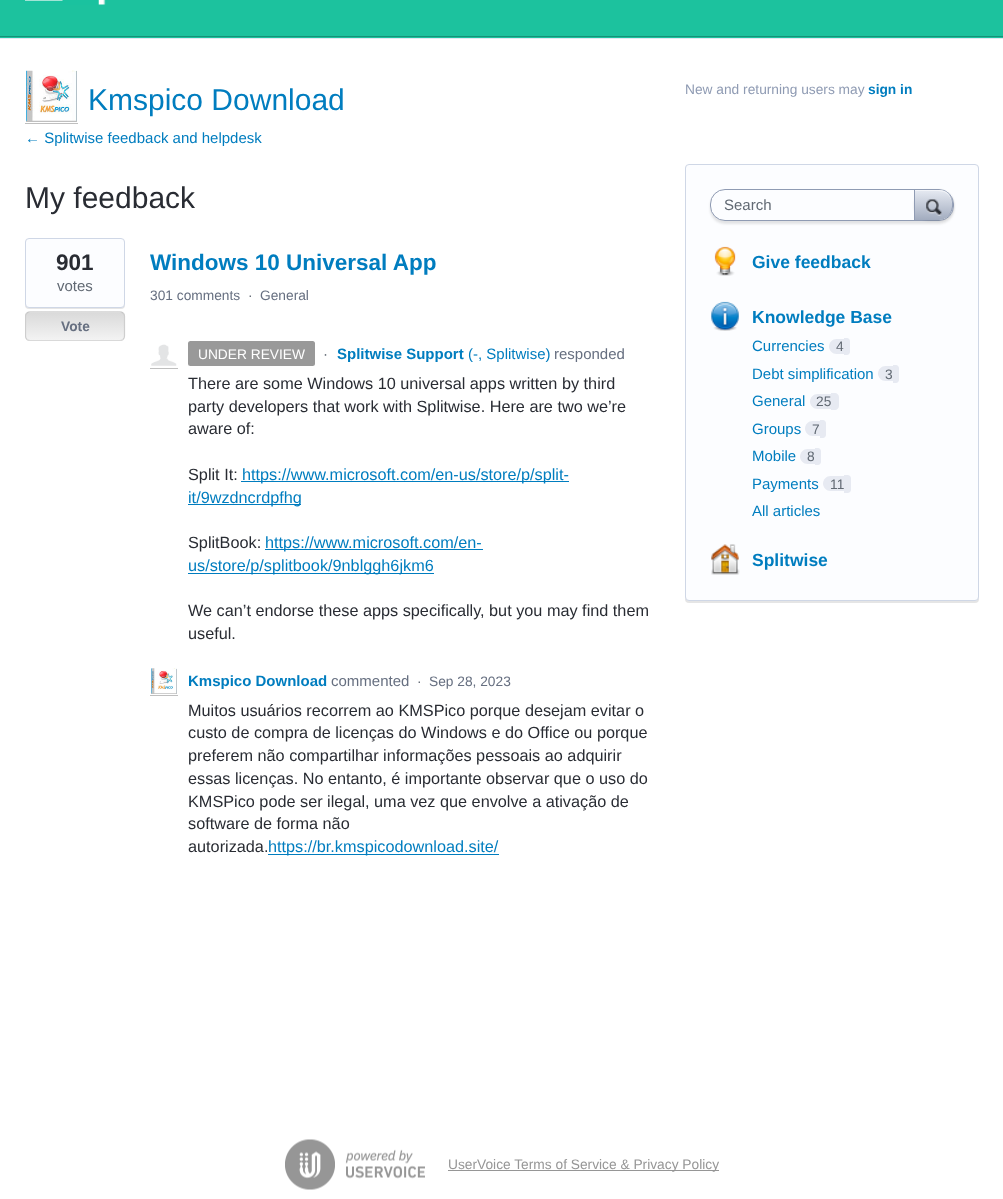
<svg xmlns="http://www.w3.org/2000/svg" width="1003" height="1199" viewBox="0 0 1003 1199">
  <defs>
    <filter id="blur1" x="-50%" y="-200%" width="200%" height="500%"><feGaussianBlur stdDeviation="0.5"/></filter>
    <clipPath id="clip1"><rect x="25" y="311" width="100" height="30" rx="5"/></clipPath>
    <linearGradient id="g1" gradientUnits="userSpaceOnUse" x1="26" y1="285" x2="26" y2="313"><stop offset="0" stop-color="#dadada"/><stop offset="1" stop-color="#f3f3f3"/></linearGradient>
    <linearGradient id="g2" gradientUnits="userSpaceOnUse" x1="26" y1="313" x2="26" y2="340"><stop offset="0" stop-color="#dadada"/><stop offset="1" stop-color="#f3f3f3"/></linearGradient>
    <clipPath id="clip2"><rect x="25" y="70" width="954" height="989"/></clipPath>
    <clipPath id="clip3"><path d="M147 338H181V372H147ZM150 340H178V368H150Z" clip-rule="evenodd"/></clipPath>
    <filter id="blur2" x="-50%" y="-200%" width="200%" height="500%"><feGaussianBlur stdDeviation="1"/></filter>
    <clipPath id="clip4"><path d="M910 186H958V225H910ZM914 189H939C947.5 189 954 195.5 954 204V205C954 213.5 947.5 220 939 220H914Z" clip-rule="evenodd"/></clipPath>
    <linearGradient id="g3" gradientUnits="userSpaceOnUse" x1="915" y1="190" x2="915" y2="220"><stop offset="0" stop-color="#e6eaf2"/><stop offset="1" stop-color="#a2acbf"/></linearGradient>
  </defs>
  <rect width="100%" height="100%" fill="#ffffff"/>
  <rect x="0" y="0" width="1003" height="38" fill="#1cc29e"/>
  <rect x="0" y="36" width="1003" height="1" fill="#159277"/>
  <image x="25" y="0" width="81" height="5" href="img1.png"/>
  <rect x="0" y="38" width="1003" height="1" fill="#e3e8f2"/>
  <rect x="25" y="71" width="53" height="53" fill="#000000" fill-opacity="0.25" filter="url(#blur1)"/>
  <rect x="25.5" y="70.5" width="52" height="52" fill="none" stroke="#ffffff"/>
  <image x="26" y="70" width="51" height="51" href="img2.png"/>
  <text x="88" y="110" font-family="Liberation Sans" font-size="30" fill="#007dbf">Kmspico Download</text>
  <text x="25" y="143" font-family="Liberation Sans" font-size="15" fill="#007dbf">← Splitwise feedback and helpdesk</text>
  <text x="25" y="208" font-family="Liberation Sans" font-size="30" fill="#292c33">My feedback</text>
  <rect x="25" y="239" width="100" height="70" rx="4" fill="#000000" fill-opacity="0.1" filter="url(#blur1)"/>
  <rect x="25.5" y="238.5" width="99" height="69" rx="3.5" fill="#fcfdff" stroke="#cfd7e6"/>
  <text x="56" y="270" font-family="Liberation Sans" font-size="22.5" font-weight="bold" fill="#292c33">901</text>
  <text x="57" y="291" font-family="Liberation Sans" font-size="15" fill="#616973">votes</text>
  <g clip-path="url(#clip1)">
    <rect x="25" y="311" width="100" height="2" fill="url(#g1)"/>
    <rect x="25" y="313" width="100" height="27" fill="url(#g2)"/>
  </g>
  <path d="M27 313C27.5 312.5 29 312 30 312H120C121 312 122.5 312.5 123 313" fill="none" stroke="#c5c5c5" stroke-width="1.2"/>
  <path d="M123 313C124 314 124.5 315 124.5 316V336C124.5 337.5 124 338.5 123 339.5" fill="none" stroke="#cecece" stroke-width="1.2"/>
  <path d="M123 339.5C122.5 340 121 340.5 120 340.5H30C29 340.5 27.5 340 27 339.5" fill="none" stroke="#d9d9d9" stroke-width="1.2"/>
  <g clip-path="url(#clip2)">
    <path d="M27 339.5C26 338.5 25.5 337.5 25.5 336V316C25.5 315 26 314 27 313" fill="none" stroke="#cecece" stroke-width="1.2"/>
  </g>
  <text x="61" y="331" font-family="Liberation Sans" font-size="13.75" font-weight="bold" fill="#666f80">Vote</text>
  <text x="150" y="270" font-family="Liberation Sans" font-size="22.5" font-weight="bold" fill="#007dbf">Windows 10 Universal App</text>
  <text x="150" y="300" font-family="Liberation Sans" font-size="13.75" fill="#666f80">301 comments</text>
  <text x="248" y="300" font-family="Liberation Sans" font-size="13.75" fill="#616973">·</text>
  <text x="260" y="300" font-family="Liberation Sans" font-size="13.75" fill="#666f80">General</text>
  <rect x="188" y="341" width="127" height="25" rx="2.5" fill="#999999"/>
  <text x="198" y="359" font-family="Liberation Sans" font-size="13.75" fill="#ffffff">UNDER REVIEW</text>
  <text x="323" y="359" font-family="Liberation Sans" font-size="15" fill="#616973">·</text>
  <g clip-path="url(#clip3)">
    <rect x="150" y="341" width="28" height="28" fill="#000000" fill-opacity="0.25" filter="url(#blur1)"/>
  </g>
  <rect x="150.5" y="340.5" width="27" height="27" fill="none" stroke="#ffffff"/>
  <image x="151" y="344" width="26" height="22" href="img3.png"/>
  <text x="337" y="359" font-family="Liberation Sans" font-size="15" font-weight="bold" fill="#007dbf">Splitwise Support</text>
  <text x="468" y="359" font-family="Liberation Sans" font-size="15" fill="#007dbf">(-, Splitwise)</text>
  <text x="554" y="359" font-family="Liberation Sans" font-size="15" fill="#666f80">responded</text>
  <text x="188" y="389" font-family="Liberation Sans" font-size="16.25" fill="#292c33">There are some Windows 10 universal apps written by third</text>
  <text x="188" y="412" font-family="Liberation Sans" font-size="16.25" fill="#292c33">party developers that work with Splitwise. Here are two we’re</text>
  <text x="188" y="434" font-family="Liberation Sans" font-size="16.25" fill="#292c33">aware of:</text>
  <text x="188" y="480" font-family="Liberation Sans" font-size="16.25" fill="#292c33">Split It:</text>
  <rect x="241" y="481" width="328" height="1" fill="#007dbf"/>
  <text x="242" y="480" font-family="Liberation Sans" font-size="16.25" fill="#007dbf">https://www.microsoft.com/en-us/store/p/split-</text>
  <rect x="188" y="504" width="113" height="1" fill="#007dbf"/>
  <text x="188" y="503" font-family="Liberation Sans" font-size="16.25" fill="#007dbf">it/9wzdncrdpfhg</text>
  <text x="188" y="548" font-family="Liberation Sans" font-size="16.25" fill="#292c33">SplitBook:</text>
  <rect x="265" y="549" width="218" height="1" fill="#007dbf"/>
  <text x="265" y="548" font-family="Liberation Sans" font-size="16.25" fill="#007dbf">https://www.microsoft.com/en-</text>
  <rect x="188" y="573" width="246" height="1" fill="#007dbf"/>
  <text x="188" y="571" font-family="Liberation Sans" font-size="16.25" fill="#007dbf">us/store/p/splitbook/9nblggh6jkm6</text>
  <text x="188" y="616" font-family="Liberation Sans" font-size="16.25" fill="#292c33">We can’t endorse these apps specifically, but you may find them</text>
  <text x="188" y="639" font-family="Liberation Sans" font-size="16.25" fill="#292c33">useful.</text>
  <rect x="150" y="669" width="28" height="27" fill="#000000" fill-opacity="0.25" filter="url(#blur1)"/>
  <rect x="150.5" y="668.5" width="27" height="26" fill="none" stroke="#ffffff"/>
  <image x="151" y="668" width="26" height="26" href="img4.png"/>
  <text x="188" y="686" font-family="Liberation Sans" font-size="15" font-weight="bold" fill="#007dbf">Kmspico Download</text>
  <text x="331" y="686" font-family="Liberation Sans" font-size="15" fill="#666f80">commented</text>
  <text x="417" y="686" font-family="Liberation Sans" font-size="13.75" fill="#616973">·</text>
  <text x="429" y="686" font-family="Liberation Sans" font-size="13.75" fill="#666f80">Sep 28, 2023</text>
  <text x="188" y="716" font-family="Liberation Sans" font-size="16.25" fill="#292c33">Muitos usuários recorrem ao KMSPico porque desejam evitar o</text>
  <text x="188" y="738" font-family="Liberation Sans" font-size="16.25" fill="#292c33">custo de compra de licenças do Windows e do Office ou porque</text>
  <text x="188" y="761" font-family="Liberation Sans" font-size="16.25" fill="#292c33">preferem não compartilhar informações pessoais ao adquirir</text>
  <text x="188" y="784" font-family="Liberation Sans" font-size="16.25" fill="#292c33">essas licenças. No entanto, é importante observar que o uso do</text>
  <text x="188" y="807" font-family="Liberation Sans" font-size="16.25" fill="#292c33">KMSPico pode ser ilegal, uma vez que envolve a ativação de</text>
  <text x="188" y="829" font-family="Liberation Sans" font-size="16.25" fill="#292c33">software de forma não</text>
  <text x="188" y="852" font-family="Liberation Sans" font-size="16.25" fill="#292c33">autorizada.</text>
  <rect x="268" y="854" width="231" height="1" fill="#007dbf"/>
  <text x="268" y="852" font-family="Liberation Sans" font-size="16.25" fill="#007dbf">https://br.kmspicodownload.site/</text>
  <text x="685" y="94" font-family="Liberation Sans" font-size="13.75" fill="#8f9bb3">New and returning users may</text>
  <text x="868" y="94" font-family="Liberation Sans" font-size="13.75" font-weight="bold" fill="#007dbf">sign in</text>
  <rect x="685" y="165" width="294" height="438" rx="4" fill="#000000" fill-opacity="0.1" filter="url(#blur1)"/>
  <rect x="685.5" y="164.5" width="293" height="436" rx="3.5" fill="#fcfdff" stroke="#cfd7e6"/>
  <rect x="710" y="191" width="244" height="33" rx="15" fill="#000000" fill-opacity="0.1" filter="url(#blur2)"/>
  <rect x="710.5" y="189.5" width="243" height="31" rx="14.5" fill="#fcfdff" stroke="#8f9bb3"/>
  <text x="724" y="210" font-family="Liberation Sans" font-size="15" fill="#616973">Search</text>
  <g clip-path="url(#clip4)">
    <rect x="914" y="190" width="40" height="31" rx="15" fill="#000000" fill-opacity="0.1" filter="url(#blur2)"/>
  </g>
  <path d="M915 190H939C946.5 190 952.5 196 952.5 204V205C952.5 213.5 946.5 220 939 220H915Z" fill="url(#g3)"/>
  <path d="M915 190V191H931C939.5 191 947.5 190 951 199.5C952.5 203 952.5 207.5 951 211.5C955 202 950 190 939 190Z" fill="#ffffff" fill-opacity="0.5"/>
  <path d="M939 220C951.5 220 956 202.5 948.5 194C958 202.5 952 220 939 220Z" fill="#8f9bb3"/>
  <rect x="914" y="190" width="1" height="30" fill="#8f9bb3"/>
  <image x="926" y="199" width="16" height="17" href="img5.png"/>
  <image x="714" y="246" width="22" height="30" href="img6.png"/>
  <text x="752" y="268" font-family="Liberation Sans" font-size="17.5" font-weight="bold" fill="#007dbf">Give feedback</text>
  <image x="711" y="301" width="28" height="30" href="img7.png"/>
  <text x="752" y="323" font-family="Liberation Sans" font-size="17.5" font-weight="bold" fill="#007dbf">Knowledge Base</text>
  <text x="752" y="351" font-family="Liberation Sans" font-size="15" fill="#007dbf">Currencies</text>
  <path d="M836.5 339H844V354H836.5C832.5 354 829 350.5 829 346.5C829 342.5 832.5 339 836.5 339Z" fill="#e7eaf2"/>
  <text x="836" y="351" font-family="Liberation Sans" font-size="13.75" fill="#616973">4</text>
  <path d="M844 338H847C848.5 338 850 339.5 850 341V352C850 353.5 848.5 355 847 355H844Z" fill="#e7eaf2"/>
  <text x="752" y="379" font-family="Liberation Sans" font-size="15" fill="#007dbf">Debt simplification</text>
  <path d="M885.5 366H893V381H885.5C881.5 381 878 377.5 878 373.5C878 369.5 881.5 366 885.5 366Z" fill="#e7eaf2"/>
  <text x="885" y="379" font-family="Liberation Sans" font-size="13.75" fill="#616973">3</text>
  <path d="M893 365H896C897.5 365 899 366.5 899 368V380C899 381.5 897.5 383 896 383H893Z" fill="#e7eaf2"/>
  <text x="752" y="406" font-family="Liberation Sans" font-size="15" fill="#007dbf">General</text>
  <path d="M817.5 394H831V409H817.5C813.5 409 810 405.5 810 401.5C810 397.5 813.5 394 817.5 394Z" fill="#e7eaf2"/>
  <path d="M831 393H835C837 393 839 395 839 397V406C839 408 837 410 835 410H831Z" fill="#e7eaf2"/>
  <text x="816" y="406" font-family="Liberation Sans" font-size="13.75" fill="#616973">25</text>
  <text x="752" y="434" font-family="Liberation Sans" font-size="15" fill="#007dbf">Groups</text>
  <path d="M812.5 421H820V436H812.5C808.5 436 805 432.5 805 428.5C805 424.5 808.5 421 812.5 421Z" fill="#e7eaf2"/>
  <text x="812" y="434" font-family="Liberation Sans" font-size="13.75" fill="#616973">7</text>
  <path d="M820 420H823C824.5 420 826 421.5 826 423V435C826 436.5 824.5 438 823 438H820Z" fill="#e7eaf2"/>
  <text x="752" y="461" font-family="Liberation Sans" font-size="15" fill="#007dbf">Mobile</text>
  <path d="M807.5 449H815V464H807.5C803.5 464 800 460.5 800 456.5C800 452.5 803.5 449 807.5 449Z" fill="#e7eaf2"/>
  <text x="807" y="461" font-family="Liberation Sans" font-size="13.75" fill="#616973">8</text>
  <path d="M815 448H818C819.5 448 821 449.5 821 451V462C821 463.5 819.5 465 818 465H815Z" fill="#e7eaf2"/>
  <text x="752" y="489" font-family="Liberation Sans" font-size="15" fill="#007dbf">Payments</text>
  <path d="M830.5 476H844V491H830.5C826.5 491 823 487.5 823 483.5C823 479.5 826.5 476 830.5 476Z" fill="#e7eaf2"/>
  <text x="830" y="489" font-family="Liberation Sans" font-size="13.75" fill="#616973">11</text>
  <path d="M844 475H847.5C849.5 475 851 476.5 851 478.5V489.5C851 491.5 849.5 493 847.5 493H844Z" fill="#e7eaf2"/>
  <text x="752" y="516" font-family="Liberation Sans" font-size="15" fill="#007dbf">All articles</text>
  <image x="711" y="544" width="29" height="31" href="img8.png"/>
  <text x="752" y="566" font-family="Liberation Sans" font-size="17.5" font-weight="bold" fill="#007dbf">Splitwise</text>
  <image x="285" y="1139" width="140" height="51" href="img9.png"/>
  <rect x="448" y="1170" width="271" height="1" fill="#969696"/>
  <text x="448" y="1169" font-family="Liberation Sans" font-size="13.75" fill="#969696">UserVoice Terms of Service &amp; Privacy Policy</text>
</svg>
